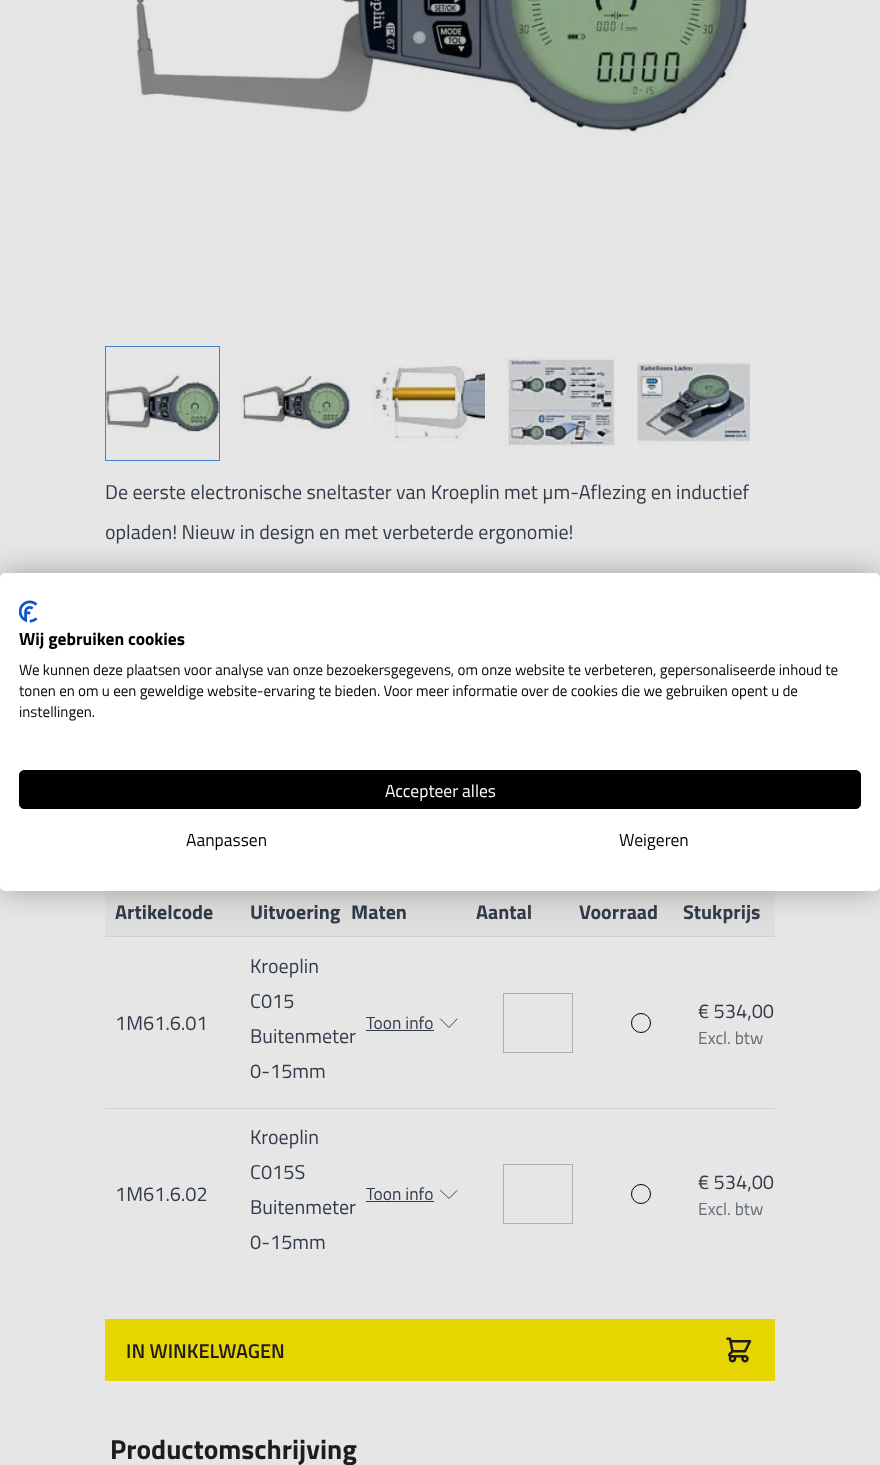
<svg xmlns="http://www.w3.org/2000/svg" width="880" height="1465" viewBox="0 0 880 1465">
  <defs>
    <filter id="blur1" x="-50%" y="-200%" width="200%" height="500%"><feGaussianBlur stdDeviation="15"/></filter>
  </defs>
  <rect width="100%" height="100%" fill="#e6e6e6"/>
  <image x="136" y="0" width="612" height="136" href="img1.png"/>
  <rect x="105.5" y="346.5" width="114" height="114" fill="none" stroke="#4382cb"/>
  <image x="106" y="373" width="113" height="60" href="img2.png"/>
  <image x="240" y="375" width="111" height="56" href="img3.png"/>
  <image x="372" y="366" width="113" height="76" href="img4.png"/>
  <image x="505" y="356" width="111" height="91" href="img5.png"/>
  <image x="637" y="362" width="113" height="84" href="img6.png"/>
  <text x="105" y="499" font-family="Titillium Web" font-size="20" fill="#323b49">De eerste electronische sneltaster van Kroeplin met µm-Aflezing en inductief</text>
  <text x="105" y="539" font-family="Titillium Web" font-size="20" fill="#323b49">opladen! Nieuw in design en met verbeterde ergonomie!</text>
  <rect x="105" y="891" width="670" height="45" fill="#dedede"/>
  <text x="115" y="919" font-family="Titillium Web" font-size="20" font-weight="bold" fill="#323b49">Artikelcode</text>
  <text x="250" y="919" font-family="Titillium Web" font-size="20" font-weight="bold" fill="#323b49">Uitvoering</text>
  <text x="351" y="919" font-family="Titillium Web" font-size="20" font-weight="bold" fill="#323b49">Maten</text>
  <text x="476" y="919" font-family="Titillium Web" font-size="20" font-weight="bold" fill="#323b49">Aantal</text>
  <text x="579" y="919" font-family="Titillium Web" font-size="20" font-weight="bold" fill="#323b49">Voorraad</text>
  <text x="683" y="919" font-family="Titillium Web" font-size="20" font-weight="bold" fill="#323b49">Stukprijs</text>
  <rect x="105" y="936" width="670" height="1" fill="#ced0d4"/>
  <text x="115" y="1030" font-family="Titillium Web" font-size="20" fill="#323b49">1M61.6.01</text>
  <text x="250" y="973" font-family="Titillium Web" font-size="20" fill="#323b49">Kroeplin</text>
  <text x="250" y="1008" font-family="Titillium Web" font-size="20" fill="#323b49">C015</text>
  <text x="250" y="1043" font-family="Titillium Web" font-size="20" fill="#323b49">Buitenmeter</text>
  <text x="250" y="1078" font-family="Titillium Web" font-size="20" fill="#323b49">0-15mm</text>
  <text x="366" y="1029" font-family="Titillium Web" font-size="17.5" fill="#323b49">Toon info</text>
  <rect x="366" y="1030" width="68" height="1" fill="#323b49"/>
  <path d="M457 1019L449 1027.5L440.5 1019" fill="none" stroke="#201c1d" stroke-width="0.8" stroke-linecap="round" stroke-linejoin="round"/>
  <rect x="503.5" y="993.5" width="69" height="59" fill="none" stroke="#aeafb0"/>
  <circle cx="641" cy="1023" r="9.5" fill="none" stroke="#000000"/>
  <text x="698" y="1018" font-family="Titillium Web" font-size="20" fill="#323b49">€ 534,00</text>
  <text x="698" y="1044" font-family="Titillium Web" font-size="17.5" fill="#646c76">Excl. btw</text>
  <rect x="105" y="1108" width="670" height="1" fill="#ced0d4"/>
  <text x="115" y="1201" font-family="Titillium Web" font-size="20" fill="#323b49">1M61.6.02</text>
  <text x="250" y="1144" font-family="Titillium Web" font-size="20" fill="#323b49">Kroeplin</text>
  <text x="250" y="1179" font-family="Titillium Web" font-size="20" fill="#323b49">C015S</text>
  <text x="250" y="1214" font-family="Titillium Web" font-size="20" fill="#323b49">Buitenmeter</text>
  <text x="250" y="1249" font-family="Titillium Web" font-size="20" fill="#323b49">0-15mm</text>
  <text x="366" y="1200" font-family="Titillium Web" font-size="17.5" fill="#323b49">Toon info</text>
  <rect x="366" y="1201" width="68" height="1" fill="#323b49"/>
  <path d="M457 1190.5L449 1198.5L440.5 1190.5" fill="none" stroke="#201c1d" stroke-width="0.8" stroke-linecap="round" stroke-linejoin="round"/>
  <rect x="503.5" y="1164.5" width="69" height="59" fill="none" stroke="#aeafb0"/>
  <circle cx="641" cy="1194" r="9.5" fill="none" stroke="#000000"/>
  <text x="698" y="1189" font-family="Titillium Web" font-size="20" fill="#323b49">€ 534,00</text>
  <text x="698" y="1215" font-family="Titillium Web" font-size="17.5" fill="#646c76">Excl. btw</text>
  <rect x="105" y="1319" width="670" height="62" fill="#e6d500"/>
  <text x="126" y="1358" font-family="Titillium Web" font-size="20" font-weight="600" fill="#201c1d">IN WINKELWAGEN</text>
  <image x="726" y="1337" width="26" height="26" href="img7.png"/>
  <text x="110" y="1459" font-family="Titillium Web" font-size="27.5" font-weight="bold" fill="#201c1d">Productomschrijving</text>
  <rect x="0" y="573" width="880" height="318" rx="5" fill="#000000" fill-opacity="0.3" filter="url(#blur1)"/>
  <rect x="0" y="573" width="880" height="318" rx="5" fill="#ffffff"/>
  <image x="19" y="600" width="19" height="23" href="img8.png"/>
  <text x="19" y="645" font-family="Titillium Web" font-size="17.5" font-weight="bold" fill="#000000">Wij gebruiken cookies</text>
  <text x="19" y="675" font-family="Titillium Web" font-size="15" fill="#000000">We kunnen deze plaatsen voor analyse van onze bezoekersgegevens, om onze website te verbeteren, gepersonaliseerde inhoud te</text>
  <text x="19" y="696" font-family="Titillium Web" font-size="15" fill="#000000">tonen en om u een geweldige website-ervaring te bieden. Voor meer informatie over de cookies die we gebruiken opent u de</text>
  <text x="19" y="717" font-family="Titillium Web" font-size="15" fill="#000000">instellingen.</text>
  <rect x="19.5" y="770.5" width="841" height="38" rx="4.5" fill="#000000" stroke="#000000"/>
  <text x="385" y="797" font-family="Titillium Web" font-size="17.5" fill="#ffffff">Accepteer alles</text>
  <text x="186" y="846" font-family="Titillium Web" font-size="17.5" fill="#000000">Aanpassen</text>
  <text x="619" y="846" font-family="Titillium Web" font-size="17.5" fill="#000000">Weigeren</text>
</svg>
